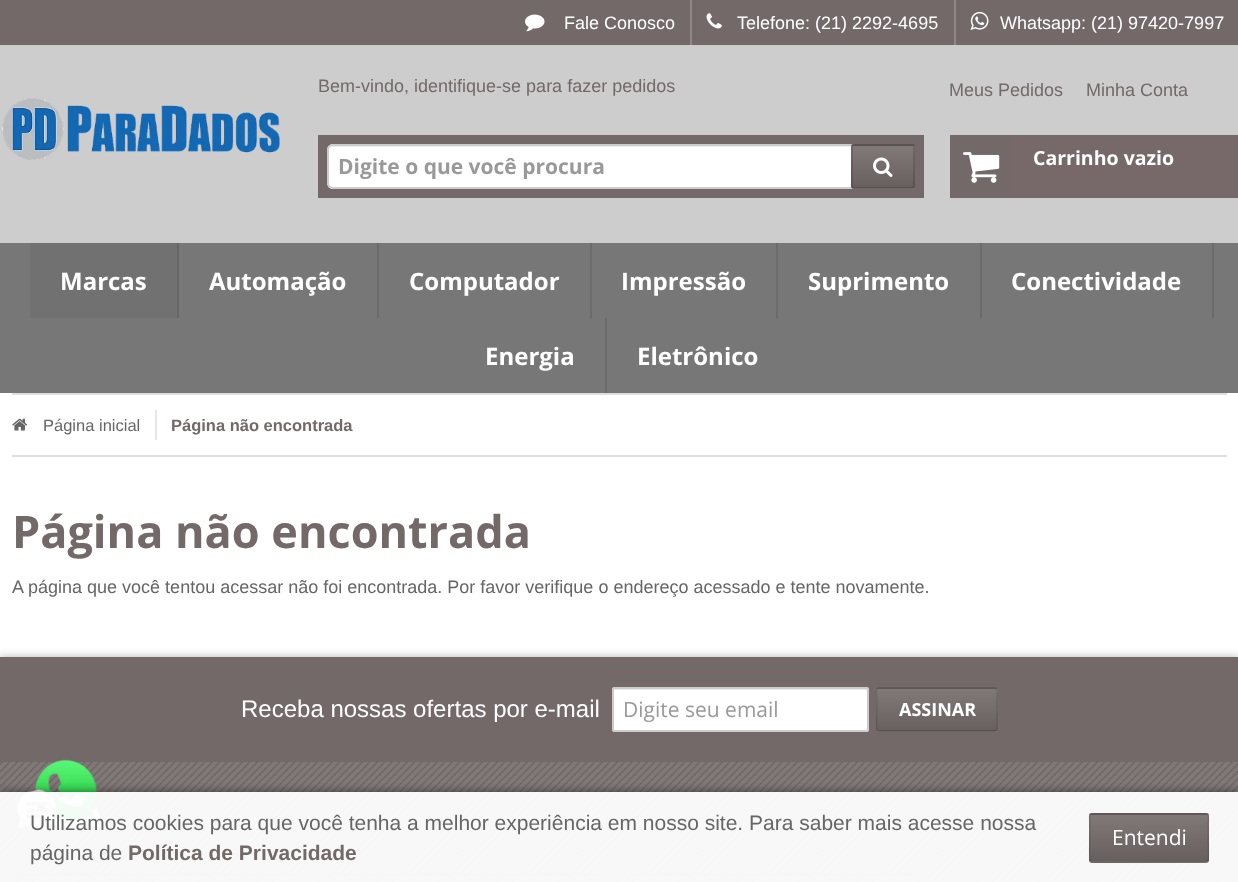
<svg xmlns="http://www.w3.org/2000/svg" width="1238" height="882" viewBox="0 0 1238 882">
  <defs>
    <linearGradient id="g1" gradientUnits="userSpaceOnUse" x1="883" y1="104" x2="883" y2="146"><stop offset="0" stop-color="#ffffff" stop-opacity="0.1"/><stop offset="1" stop-color="#000000" stop-opacity="0.1"/></linearGradient>
    <linearGradient id="g2" gradientUnits="userSpaceOnUse" x1="883" y1="146" x2="883" y2="188"><stop offset="0" stop-color="#ffffff" stop-opacity="0.1"/><stop offset="1" stop-color="#000000" stop-opacity="0.1"/></linearGradient>
    <linearGradient id="g3" gradientUnits="userSpaceOnUse" x1="883" y1="188" x2="883" y2="230"><stop offset="0" stop-color="#ffffff" stop-opacity="0.1"/><stop offset="1" stop-color="#000000" stop-opacity="0.1"/></linearGradient>
    <filter id="blur1" x="-50%" y="-200%" width="200%" height="500%"><feGaussianBlur stdDeviation="4"/></filter>
    <clipPath id="clip1"><rect x="876" y="687" width="122" height="45" rx="3"/></clipPath>
    <linearGradient id="g4" gradientUnits="userSpaceOnUse" x1="937" y1="647" x2="937" y2="689"><stop offset="0" stop-color="#817878"/><stop offset="1" stop-color="#685f5f"/></linearGradient>
    <linearGradient id="g5" gradientUnits="userSpaceOnUse" x1="937" y1="689" x2="937" y2="731"><stop offset="0" stop-color="#817878"/><stop offset="1" stop-color="#685f5f"/></linearGradient>
    <linearGradient id="g6" gradientUnits="userSpaceOnUse" x1="937" y1="731" x2="937" y2="773"><stop offset="0" stop-color="#817878"/><stop offset="1" stop-color="#685f5f"/></linearGradient>
    <clipPath id="clip2"><rect x="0" y="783" width="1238" height="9"/></clipPath>
    <filter id="blur2" x="-50%" y="-200%" width="200%" height="500%"><feGaussianBlur stdDeviation="5"/></filter>
    <linearGradient id="g7" gradientUnits="userSpaceOnUse" x1="1149" y1="768" x2="1149" y2="815"><stop offset="0" stop-color="#ffffff" stop-opacity="0.1"/><stop offset="1" stop-color="#000000" stop-opacity="0.1"/></linearGradient>
    <linearGradient id="g8" gradientUnits="userSpaceOnUse" x1="1149" y1="815" x2="1149" y2="861"><stop offset="0" stop-color="#ffffff" stop-opacity="0.1"/><stop offset="1" stop-color="#000000" stop-opacity="0.1"/></linearGradient>
    <linearGradient id="g9" gradientUnits="userSpaceOnUse" x1="1149" y1="861" x2="1149" y2="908"><stop offset="0" stop-color="#ffffff" stop-opacity="0.1"/><stop offset="1" stop-color="#000000" stop-opacity="0.1"/></linearGradient>
  </defs>
  <rect width="100%" height="100%" fill="#ffffff"/>
  <rect x="0" y="0" width="1238" height="45" fill="#736969"/>
  <image x="525" y="14" width="20" height="18" href="img1.png"/>
  <text x="564" y="29" font-family="Liberation Sans" font-size="18" fill="#ffffff">Fale Conosco</text>
  <rect x="690" y="0" width="2" height="45" fill="#8f8787"/>
  <image x="706" y="13" width="16" height="16" href="img2.png"/>
  <text x="737" y="29" font-family="Liberation Sans" font-size="18" fill="#ffffff">Telefone: (21) 2292-4695</text>
  <rect x="954" y="0" width="2" height="45" fill="#8f8787"/>
  <image x="970" y="11" width="19" height="19" href="img3.png"/>
  <text x="1000" y="29" font-family="Liberation Sans" font-size="18" fill="#ffffff">Whatsapp: (21) 97420-7997</text>
  <rect x="0" y="45" width="1238" height="198" fill="#cdcdcd"/>
  <image x="2" y="98" width="278" height="62" href="img4.png"/>
  <text x="318" y="92" font-family="Liberation Sans" font-size="18" fill="#736969">Bem-vindo, identifique-se para fazer pedidos</text>
  <text x="949" y="96" font-family="Liberation Sans" font-size="18" fill="#736969">Meus Pedidos</text>
  <text x="1086" y="96" font-family="Liberation Sans" font-size="18" fill="#736969">Minha Conta</text>
  <rect x="318" y="135" width="606" height="63" fill="#736969"/>
  <rect x="327" y="144" width="573" height="45" rx="6" fill="#ffffff"/>
  <path d="M333 147H894C896 147 898 149 898 152V184L897 187C898 186 899 184 899 183V151C899 148 897 146 894 146H334C332 146 331 147 330 148Z" fill="#ececec"/>
  <rect x="328" y="145" width="571" height="43" rx="5" fill="none" stroke="#cccccc" stroke-width="2"/>
  <text x="338" y="174" font-family="Open Sans" font-size="21" font-weight="bold" fill="#999999">Digite o que você procura</text>
  <rect x="851" y="144" width="64" height="45" rx="3" fill="#736969"/>
  <rect x="851" y="144" width="64" height="2" fill="url(#g1)"/>
  <rect x="851" y="146" width="64" height="42" fill="url(#g2)"/>
  <rect x="851" y="188" width="64" height="1" fill="url(#g3)"/>
  <rect x="852" y="145" width="62" height="43" rx="2" fill="none" stroke="#000000" stroke-opacity="0.13" stroke-width="2"/>
  <image x="873" y="157" width="20" height="20" href="img5.png"/>
  <rect x="1011" y="137" width="226" height="59" fill="#776969"/>
  <rect x="951" y="136" width="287" height="61" fill="none" stroke="#736969" stroke-width="2"/>
  <rect x="952" y="137" width="59" height="59" fill="#736969"/>
  <image x="963" y="152" width="37" height="31" href="img6.png"/>
  <text x="1033" y="165" font-family="Open Sans" font-size="19.5" font-weight="bold" fill="#ffffff">Carrinho vazio</text>
  <rect x="0" y="243" width="1238" height="150" fill="#777777"/>
  <rect x="30" y="243" width="147" height="75" fill="#717171"/>
  <rect x="177" y="243" width="2" height="75" fill="#666666"/>
  <text x="60" y="290" font-family="Open Sans" font-size="24" font-weight="bold" fill="#ffffff">Marcas</text>
  <rect x="377" y="243" width="2" height="75" fill="#6b6b6b"/>
  <text x="209" y="290" font-family="Open Sans" font-size="24" font-weight="bold" fill="#ffffff">Automação</text>
  <rect x="590" y="243" width="2" height="75" fill="#6b6b6b"/>
  <text x="409" y="290" font-family="Open Sans" font-size="24" font-weight="bold" fill="#ffffff">Computador</text>
  <rect x="776" y="243" width="2" height="75" fill="#6b6b6b"/>
  <text x="621" y="290" font-family="Open Sans" font-size="24" font-weight="bold" fill="#ffffff">Impressão</text>
  <rect x="980" y="243" width="2" height="75" fill="#6b6b6b"/>
  <text x="808" y="290" font-family="Open Sans" font-size="24" font-weight="bold" fill="#ffffff">Suprimento</text>
  <rect x="1212" y="243" width="2" height="75" fill="#6b6b6b"/>
  <text x="1011" y="290" font-family="Open Sans" font-size="24" font-weight="bold" fill="#ffffff">Conectividade</text>
  <rect x="605" y="318" width="2" height="75" fill="#6b6b6b"/>
  <text x="485" y="365" font-family="Open Sans" font-size="24" font-weight="bold" fill="#ffffff">Energia</text>
  <text x="637" y="365" font-family="Open Sans" font-size="24" font-weight="bold" fill="#ffffff">Eletrônico</text>
  <rect x="12" y="393" width="1215" height="2" fill="#dedede"/>
  <rect x="12" y="455" width="1215" height="2" fill="#dedede"/>
  <image x="12" y="418" width="15" height="13" href="img7.png"/>
  <text x="43" y="431" font-family="Liberation Sans" font-size="16.5" fill="#666666">Página inicial</text>
  <rect x="155" y="410" width="2" height="30" fill="#e6e6e6"/>
  <text x="171" y="431" font-family="Liberation Sans" font-size="16.5" font-weight="bold" fill="#736969">Página não encontrada</text>
  <text x="12" y="548" font-family="Open Sans" font-size="45" font-weight="bold" fill="#736969">Página não encontrada</text>
  <text x="12" y="593" font-family="Liberation Sans" font-size="18" fill="#666666">A página que você tentou acessar não foi encontrada. Por favor verifique o endereço acessado e tente novamente.</text>
  <rect x="0" y="657" width="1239" height="105" fill="#000000" fill-opacity="0.3" filter="url(#blur1)"/>
  <rect x="0" y="657" width="1238" height="225" fill="#736969"/>
  <text x="241" y="717" font-family="Liberation Sans" font-size="24" fill="#ffffff">Receba nossas ofertas por e-mail</text>
  <rect x="612" y="687" width="257" height="45" rx="3" fill="#ffffff"/>
  <path d="M615 690H866L867 692V689H866H616C614 689 614 691 614 692C614 691 614 690 615 690Z" fill="#ececec"/>
  <rect x="613" y="688" width="255" height="43" rx="2" fill="none" stroke="#cccccc" stroke-width="2"/>
  <text x="623" y="717" font-family="Open Sans" font-size="21" fill="#999999">Digite seu email</text>
  <g clip-path="url(#clip1)">
    <rect x="876" y="687" width="122" height="2" fill="url(#g4)"/>
    <rect x="876" y="689" width="122" height="42" fill="url(#g5)"/>
    <rect x="876" y="731" width="122" height="1" fill="url(#g6)"/>
  </g>
  <path d="M996 730.5L994.5 731H898H879L877.5 730.5" fill="none" stroke="#000000" stroke-opacity="0.2" stroke-width="1.5"/>
  <path d="M877.5 730.5C875.5 729 877 712.5 877 709.5V696.5C877 695.5 875 688 879 688H994.5C998.5 688 997 695.5 997 696.5V709.5C997 712.5 998 729 996 730.5" fill="none" stroke="#000000" stroke-opacity="0.1" stroke-width="1.5"/>
  <text x="899" y="716" font-family="Open Sans" font-size="18" font-weight="bold" fill="#ffffff">ASSINAR</text>
  <image x="0" y="762" width="1238" height="120" href="img8.png"/>
  <rect x="15" y="873" width="284" height="2" fill="#000000" fill-opacity="0.1"/>
  <rect x="323" y="873" width="283" height="2" fill="#000000" fill-opacity="0.1"/>
  <rect x="630" y="873" width="284" height="2" fill="#000000" fill-opacity="0.1"/>
  <image x="16" y="759" width="87" height="70" href="img9.png"/>
  <g clip-path="url(#clip2)">
    <rect x="0" y="792" width="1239" height="90" fill="#000000" fill-opacity="0.5" filter="url(#blur2)"/>
  </g>
  <rect x="0" y="792" width="1238" height="90" fill="#ffffff" fill-opacity="0.95"/>
  <text x="30" y="830" font-family="Liberation Sans" font-size="21" fill="#666666">Utilizamos cookies para que você tenha a melhor experiência em nosso site. Para saber mais acesse nossa</text>
  <text x="30" y="860" font-family="Liberation Sans" font-size="21" fill="#666666">página de</text>
  <text x="128" y="860" font-family="Liberation Sans" font-size="21" font-weight="bold" fill="#736969">Política de Privacidade</text>
  <rect x="1089" y="813" width="120" height="50" rx="3" fill="#736969"/>
  <rect x="1089" y="813" width="120" height="2" fill="url(#g7)"/>
  <rect x="1089" y="815" width="120" height="46" fill="url(#g8)"/>
  <rect x="1089" y="861" width="120" height="2" fill="url(#g9)"/>
  <path d="M1207.5 861L1206 861.5L1111 862H1092L1090.5 861" fill="none" stroke="#000000" stroke-opacity="0.2" stroke-width="1.5"/>
  <path d="M1090.5 861C1088.5 859.5 1090 841 1090 838V823C1090 823 1088 814 1092 814H1206C1210 814 1208 823 1208 823V838C1208 841 1209.5 859.5 1207.5 861" fill="none" stroke="#000000" stroke-opacity="0.1" stroke-width="1.5"/>
  <text x="1112" y="845" font-family="Open Sans" font-size="21" fill="#ffffff">Entendi</text>
</svg>
